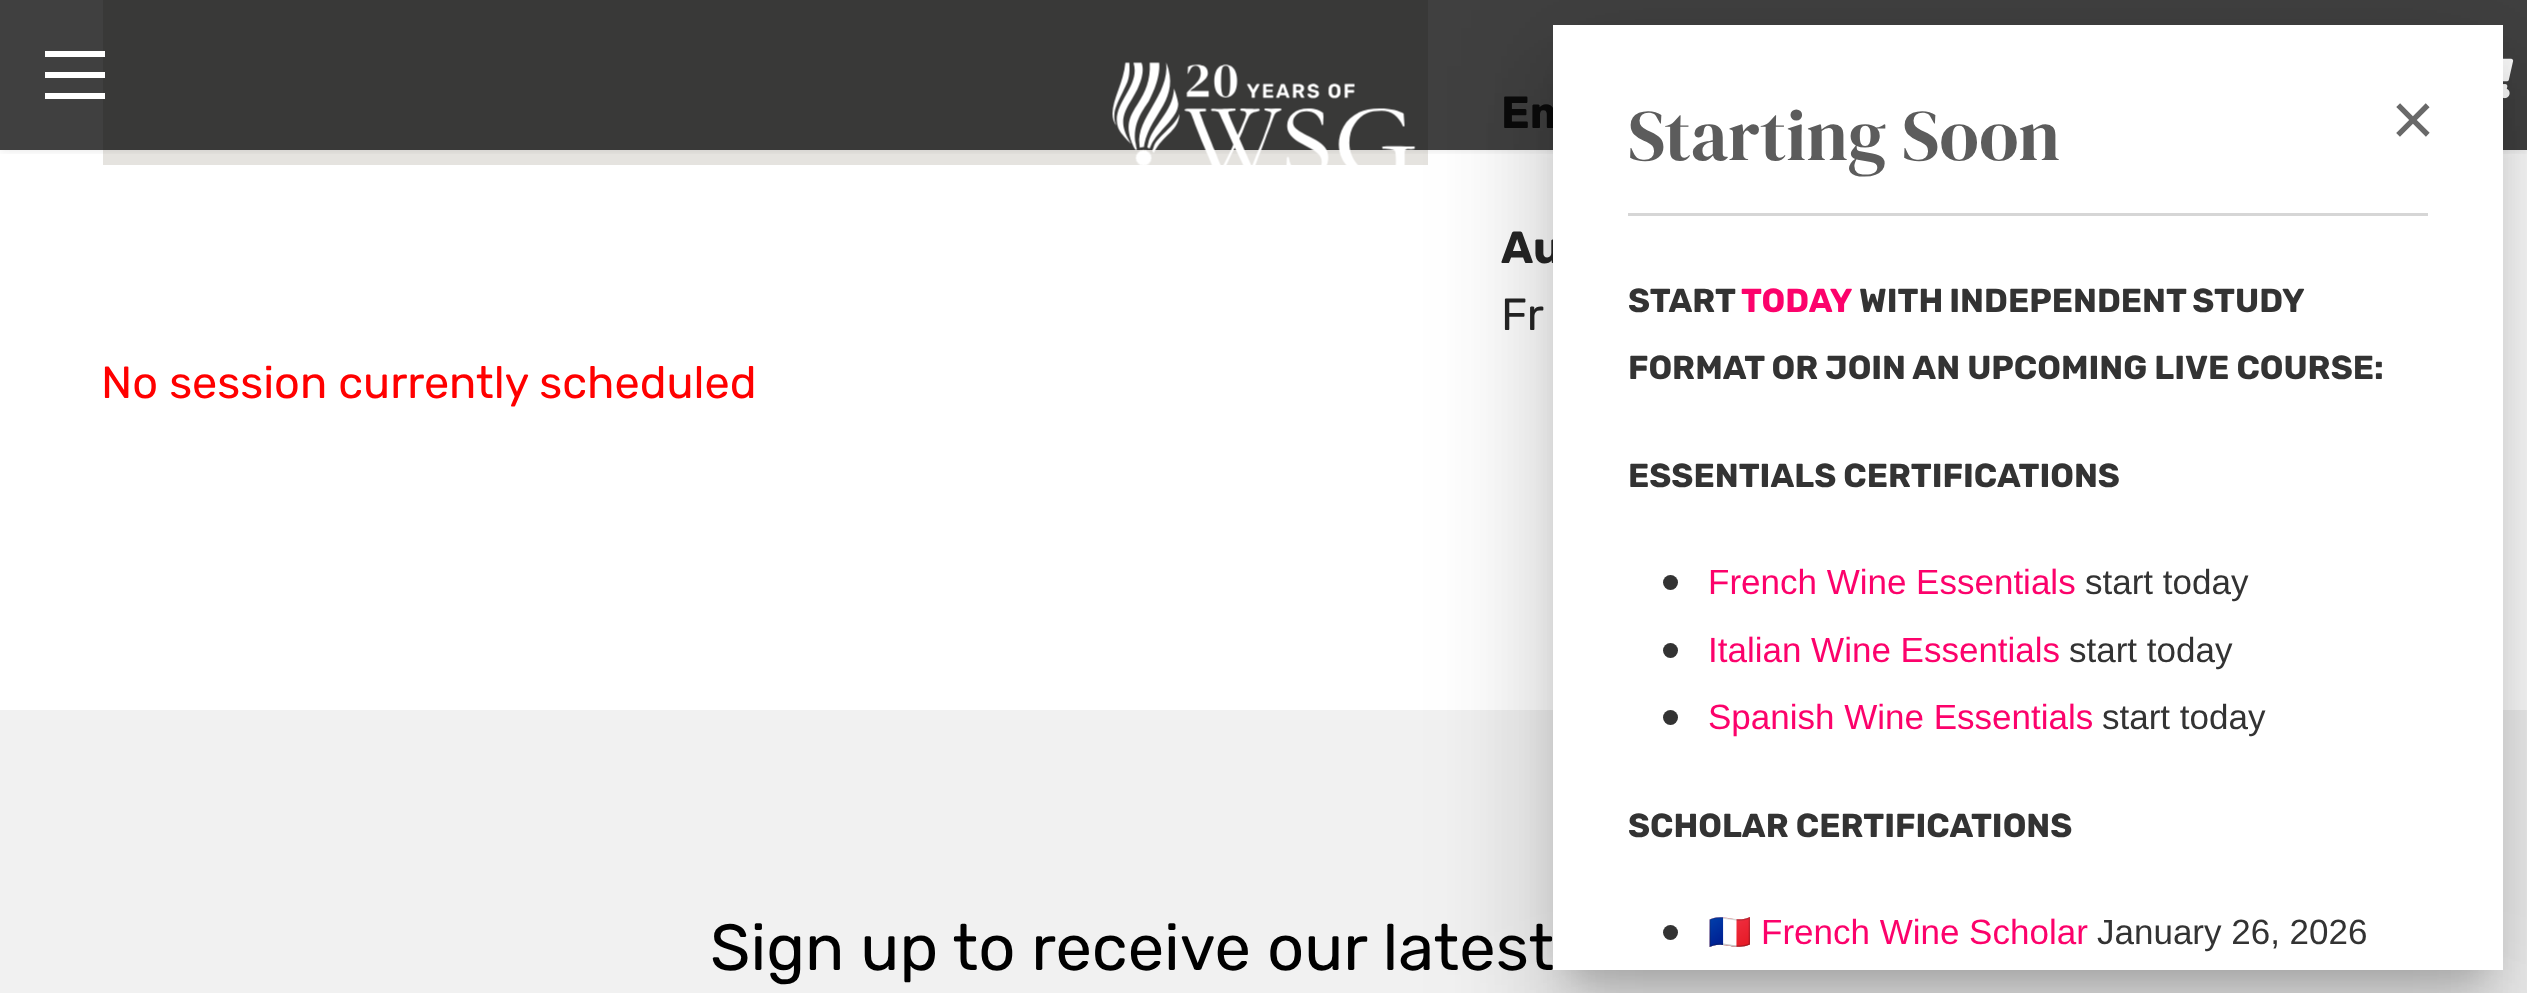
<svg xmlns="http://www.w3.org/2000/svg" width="2527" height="993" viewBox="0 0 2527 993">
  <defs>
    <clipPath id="clip1"><rect x="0" y="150" width="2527" height="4"/></clipPath>
    <filter id="blur1" x="-50%" y="-200%" width="200%" height="500%"><feGaussianBlur stdDeviation="5"/></filter>
    <filter id="blur2" x="-50%" y="-200%" width="200%" height="500%"><feGaussianBlur stdDeviation="57.5"/></filter>
    <filter id="blur3" x="-50%" y="-200%" width="200%" height="500%"><feGaussianBlur stdDeviation="47.5"/></filter>
    <filter id="blur4" x="-50%" y="-200%" width="200%" height="500%"><feGaussianBlur stdDeviation="19"/></filter>
  </defs>
  <rect width="100%" height="100%" fill="#ffffff"/>
  <rect x="0" y="0" width="2527" height="150" fill="#404040"/>
  <rect x="103" y="150" width="1325" height="15" fill="#e5e3df"/>
  <rect x="103" y="0" width="1325" height="150" fill="#393938"/>
  <g clip-path="url(#clip1)">
    <rect x="0" y="0" width="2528" height="150" fill="#000000" fill-opacity="0.1" filter="url(#blur1)"/>
  </g>
  <rect x="45" y="51" width="60" height="6" fill="#ffffff"/>
  <rect x="45" y="72" width="60" height="6" fill="#ffffff"/>
  <rect x="45" y="93" width="60" height="6" fill="#ffffff"/>
  <image x="1112" y="62" width="304" height="103" href="img1.png"/>
  <image x="2503" y="58" width="11" height="41" href="img2.png"/>
  <text x="1501" y="128" font-family="Rubik" font-size="45" font-weight="bold" fill="#090909">Em</text>
  <text x="1501" y="263" font-family="Rubik" font-size="45" font-weight="bold" fill="#252525">Au</text>
  <text x="1501" y="330" font-family="Rubik" font-size="45" fill="#252525">Fr</text>
  <text x="101" y="398" font-family="Rubik" font-size="45" fill="#ff0000">No session currently scheduled</text>
  <rect x="0" y="710" width="2527" height="283" fill="#f1f1f1"/>
  <text x="710" y="970" font-family="Rubik" font-size="65" fill="#000000">Sign up to receive our latest</text>
  <rect x="1533" y="28" width="990" height="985" fill="#000000" fill-opacity="0.1" filter="url(#blur2)"/>
  <rect x="1545" y="78" width="965" height="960" fill="#000000" fill-opacity="0.1" filter="url(#blur3)"/>
  <rect x="1570" y="70" width="915" height="910" fill="#000000" fill-opacity="0.2" filter="url(#blur4)"/>
  <rect x="1553" y="25" width="950" height="945" fill="#ffffff"/>
  <rect x="1628" y="213" width="800" height="3" fill="#d6d6d6"/>
  <text x="1628" y="160" font-family="DM Serif Display" font-size="72" fill="#5c5c5c">Starting Soon</text>
  <text x="1628" y="312" font-family="Rubik" font-size="33.3" font-weight="bold" fill="#333333">START</text>
  <text x="1741" y="312" font-family="Rubik" font-size="33.3" font-weight="bold" fill="#fc026b">TODAY</text>
  <text x="1859" y="312" word-spacing="-1" font-family="Rubik" font-size="33.3" font-weight="bold" fill="#333333">WITH INDEPENDENT STUDY</text>
  <text x="1628" y="379" font-family="Rubik" font-size="33.3" font-weight="bold" fill="#333333">FORMAT OR JOIN AN UPCOMING LIVE COURSE:</text>
  <text x="1628" y="487" font-family="Rubik" font-size="33.3" font-weight="bold" fill="#333333">ESSENTIALS CERTIFICATIONS</text>
  <circle cx="1670.5" cy="582.5" r="7.5" fill="#333333"/>
  <text x="1708" y="594" font-family="Liberation Sans" font-size="35" fill="#fc026b">French Wine Essentials</text>
  <text x="2085" y="594" font-family="Liberation Sans" font-size="35" fill="#333333">start today</text>
  <circle cx="1670.5" cy="650.5" r="7.5" fill="#333333"/>
  <text x="1708" y="662" font-family="Liberation Sans" font-size="35" fill="#fc026b">Italian Wine Essentials</text>
  <text x="2069" y="662" font-family="Liberation Sans" font-size="35" fill="#333333">start today</text>
  <circle cx="1670.5" cy="717.5" r="7.5" fill="#333333"/>
  <text x="1708" y="729" font-family="Liberation Sans" font-size="35" fill="#fc026b">Spanish Wine Essentials</text>
  <text x="2102" y="729" font-family="Liberation Sans" font-size="35" fill="#333333">start today</text>
  <text x="1628" y="837" font-family="Rubik" font-size="33.3" font-weight="bold" fill="#333333">SCHOLAR CERTIFICATIONS</text>
  <circle cx="1670.5" cy="932.5" r="7.5" fill="#333333"/>
  <text x="1708" y="944" font-family="Noto Color Emoji" font-size="35" fill="#fc026b">🇫🇷</text>
  <text x="1761" y="944" font-family="Liberation Sans" font-size="35" fill="#fc026b">French Wine Scholar</text>
  <text x="2097" y="944" font-family="Liberation Sans" font-size="35" fill="#333333">January 26, 2026</text>
  <text x="2391" y="145" font-family="Liberation Sans" font-size="75" fill="#696969">×</text>
</svg>
